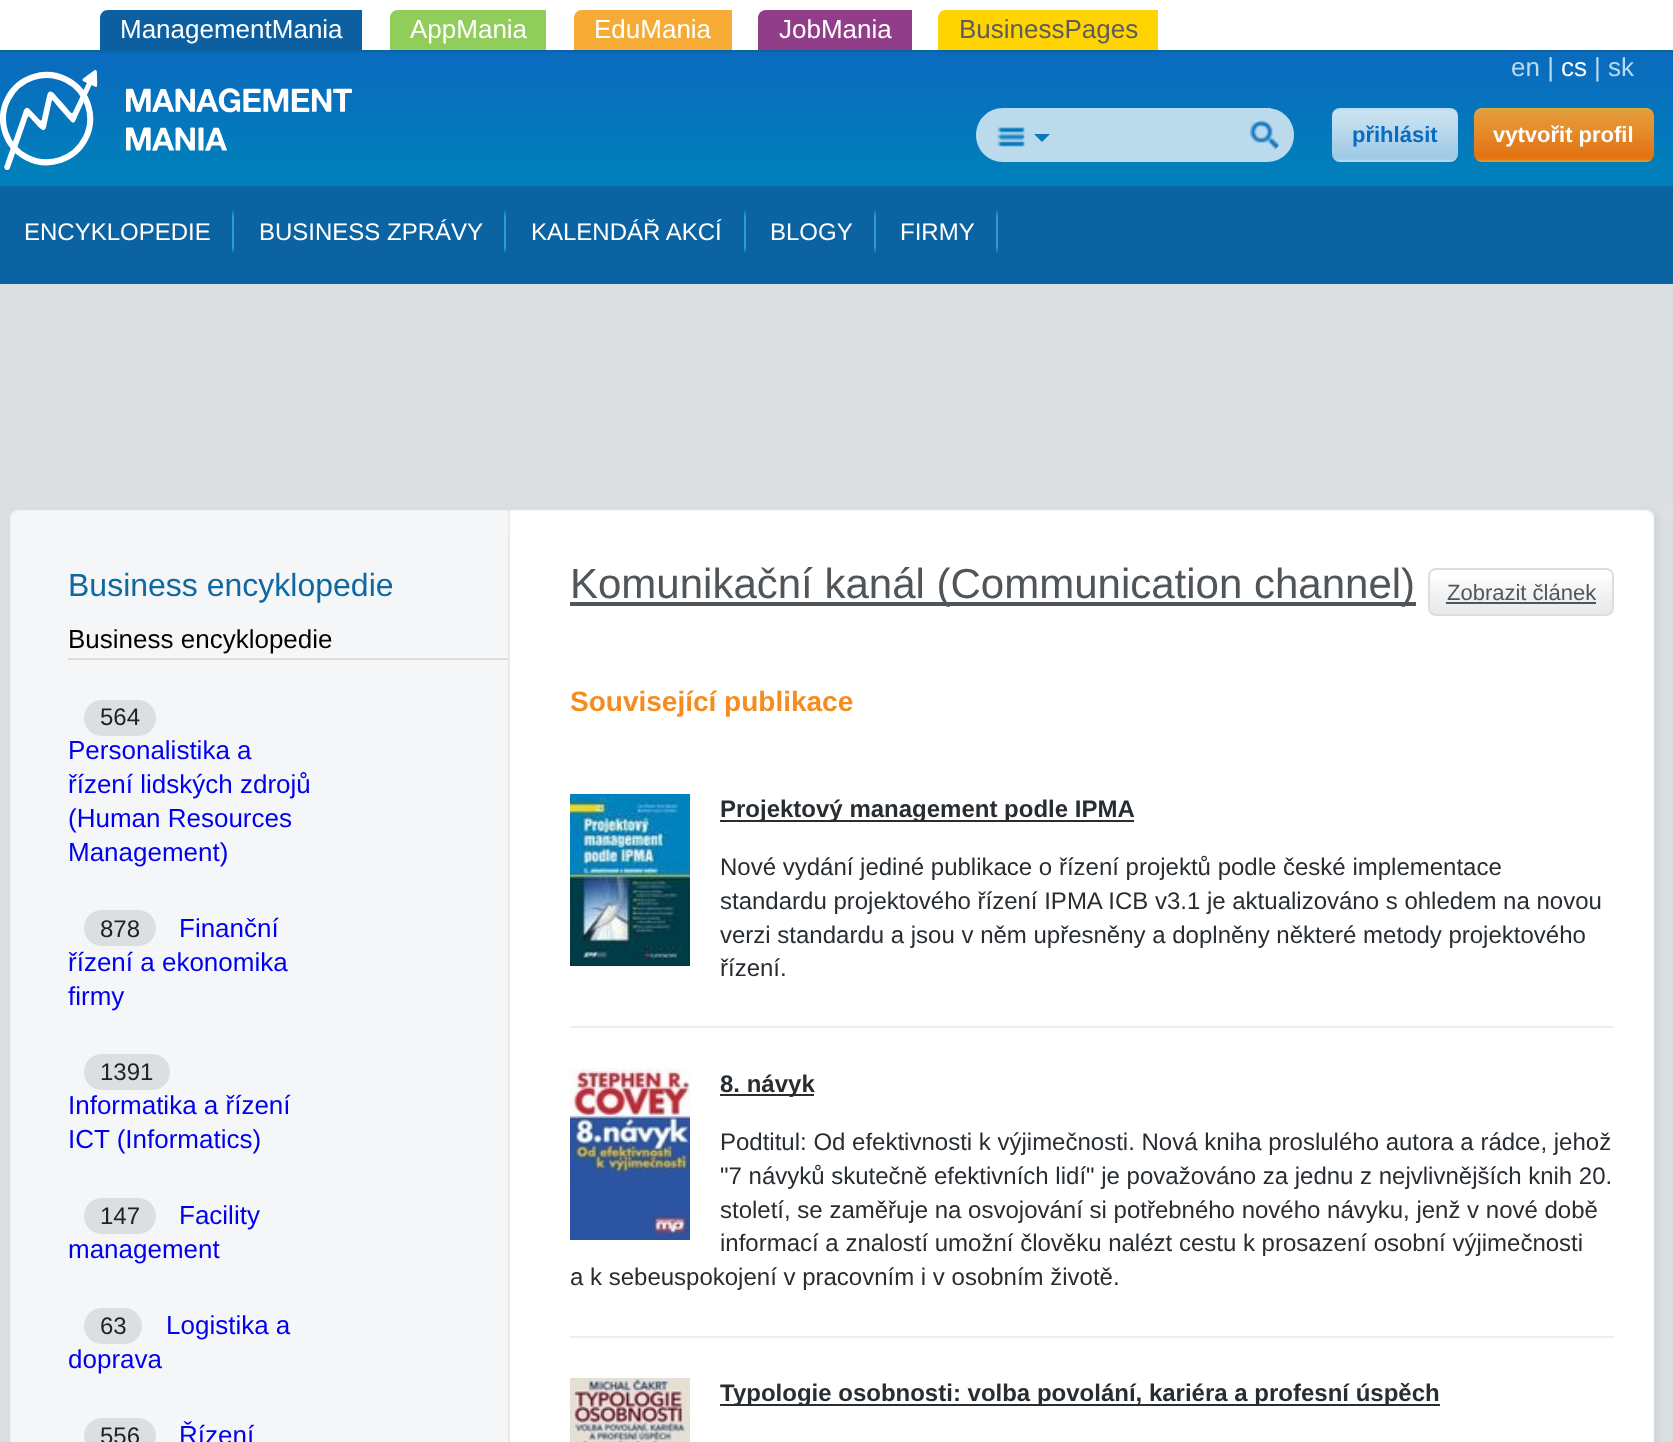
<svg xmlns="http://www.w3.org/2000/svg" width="1673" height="1442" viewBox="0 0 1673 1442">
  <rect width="100%" height="100%" fill="#dcdfe2"/>
  <rect x="0" y="0" width="1673" height="50" fill="#ffffff"/>
  <path d="M108 10H362V50H100V18C100 13.5 103.5 10 108 10Z" fill="#0c60a2"/>
  <text x="120" y="38" font-family="Liberation Sans" font-size="26" fill="#ffffff">ManagementMania</text>
  <path d="M398 10H546V50H390V18C390 13.5 393.5 10 398 10Z" fill="#90cd5a"/>
  <text x="410" y="38" font-family="Liberation Sans" font-size="26" fill="#ffffff">AppMania</text>
  <path d="M582 10H732V50H574V18C574 13.5 577.5 10 582 10Z" fill="#f5ab35"/>
  <text x="594" y="38" font-family="Liberation Sans" font-size="26" fill="#ffffff">EduMania</text>
  <path d="M766 10H912V50H758V18C758 13.5 761.5 10 766 10Z" fill="#913d88"/>
  <text x="779" y="38" font-family="Liberation Sans" font-size="26" fill="#ffffff">JobMania</text>
  <path d="M946 10H1158V50H938V18C938 13.5 941.5 10 946 10Z" fill="#ffd400"/>
  <text x="959" y="38" font-family="Liberation Sans" font-size="26" fill="#5c5c5c">BusinessPages</text>
  <rect x="0" y="50" width="1673" height="234" fill="#0b63a1"/>
  <image x="0" y="51" width="1673" height="136" href="img1.png"/>
  <image x="0" y="70" width="352" height="100" href="img2.png"/>
  <text x="1511" y="76" font-family="Liberation Sans" font-size="26" fill="#bbdaec">en |</text>
  <text x="1561" y="76" font-family="Liberation Sans" font-size="26" fill="#ffffff">cs</text>
  <text x="1594" y="76" font-family="Liberation Sans" font-size="26" fill="#bbdaec">| sk</text>
  <path d="M1003 108H1040V162H1003C988 162 976 150 976 135C976 120 988 108 1003 108Z" fill="#bbdaec"/>
  <image x="997" y="127" width="28" height="20" href="img3.png"/>
  <rect x="1040" y="108" width="190" height="54" fill="#bbdaec"/>
  <path d="M1034 134H1050L1042 142Z" fill="#0479bc"/>
  <path d="M1230 108H1267C1282 108 1294 120 1294 135C1294 150 1282 162 1267 162H1230Z" fill="#bbdaec"/>
  <image x="1250" y="120" width="30" height="30" href="img4.png"/>
  <image x="1332" y="108" width="126" height="54" href="img5.png"/>
  <text x="1352" y="142" font-family="Liberation Sans" font-size="22" font-weight="bold" fill="#096cbf">přihlásit</text>
  <image x="1474" y="108" width="180" height="54" href="img6.png"/>
  <text x="1493" y="142" font-family="Liberation Sans" font-size="22" font-weight="bold" fill="#ffffff">vytvořit profil</text>
  <image x="232" y="210" width="2" height="42" href="img7.png"/>
  <text x="24" y="240" font-family="Liberation Sans" font-size="24" fill="#ffffff">ENCYKLOPEDIE</text>
  <image x="504" y="210" width="2" height="42" href="img7.png"/>
  <text x="259" y="240" font-family="Liberation Sans" font-size="24" fill="#ffffff">BUSINESS ZPRÁVY</text>
  <image x="744" y="210" width="2" height="42" href="img7.png"/>
  <text x="531" y="240" font-family="Liberation Sans" font-size="24" fill="#ffffff">KALENDÁŘ AKCÍ</text>
  <image x="874" y="210" width="2" height="42" href="img7.png"/>
  <text x="770" y="240" font-family="Liberation Sans" font-size="24" fill="#ffffff">BLOGY</text>
  <image x="996" y="210" width="2" height="42" href="img7.png"/>
  <text x="900" y="240" font-family="Liberation Sans" font-size="24" fill="#ffffff">FIRMY</text>
  <image x="10" y="508" width="500" height="10" href="img8.png"/>
  <image x="510" y="506" width="1163" height="12" href="img9.png"/>
  <image x="10" y="518" width="500" height="924" href="img10.png"/>
  <rect x="508" y="534" width="1" height="908" fill="#e9ebeb"/>
  <text x="68" y="596" font-family="Liberation Sans" font-size="32" fill="#0f69a0">Business encyklopedie</text>
  <rect x="68" y="658" width="440" height="2" fill="#dddddd"/>
  <text x="68" y="648" font-family="Liberation Sans" font-size="26" fill="#000000">Business encyklopedie</text>
  <rect x="84" y="700" width="72" height="36" rx="18" fill="#dcdfe2"/>
  <text x="100" y="725" font-family="Liberation Sans" font-size="24" fill="#222222">564</text>
  <text x="68" y="759" font-family="Liberation Sans" font-size="26" fill="#0000ee">Personalistika a</text>
  <text x="68" y="793" font-family="Liberation Sans" font-size="26" fill="#0000ee">řízení lidských zdrojů</text>
  <text x="68" y="827" font-family="Liberation Sans" font-size="26" fill="#0000ee">(Human Resources</text>
  <text x="68" y="861" font-family="Liberation Sans" font-size="26" fill="#0000ee">Management)</text>
  <rect x="84" y="910" width="72" height="36" rx="18" fill="#dcdfe2"/>
  <text x="100" y="937" font-family="Liberation Sans" font-size="24" fill="#222222">878</text>
  <text x="179" y="937" font-family="Liberation Sans" font-size="26" fill="#0000ee">Finanční</text>
  <text x="68" y="971" font-family="Liberation Sans" font-size="26" fill="#0000ee">řízení a ekonomika</text>
  <text x="68" y="1005" font-family="Liberation Sans" font-size="26" fill="#0000ee">firmy</text>
  <rect x="84" y="1054" width="86" height="36" rx="18" fill="#dcdfe2"/>
  <text x="100" y="1080" font-family="Liberation Sans" font-size="24" fill="#222222">1391</text>
  <text x="68" y="1114" font-family="Liberation Sans" font-size="26" fill="#0000ee">Informatika a řízení</text>
  <text x="68" y="1148" font-family="Liberation Sans" font-size="26" fill="#0000ee">ICT (Informatics)</text>
  <rect x="84" y="1198" width="72" height="36" rx="18" fill="#dcdfe2"/>
  <text x="100" y="1224" font-family="Liberation Sans" font-size="24" fill="#222222">147</text>
  <text x="179" y="1224" font-family="Liberation Sans" font-size="26" fill="#0000ee">Facility</text>
  <text x="68" y="1258" font-family="Liberation Sans" font-size="26" fill="#0000ee">management</text>
  <rect x="84" y="1308" width="58" height="36" rx="18" fill="#dcdfe2"/>
  <text x="100" y="1334" font-family="Liberation Sans" font-size="24" fill="#222222">63</text>
  <text x="166" y="1334" font-family="Liberation Sans" font-size="26" fill="#0000ee">Logistika a</text>
  <text x="68" y="1368" font-family="Liberation Sans" font-size="26" fill="#0000ee">doprava</text>
  <rect x="84" y="1418" width="72" height="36" rx="18" fill="#dcdfe2"/>
  <text x="100" y="1444" font-family="Liberation Sans" font-size="24" fill="#222222">556</text>
  <text x="179" y="1444" font-family="Liberation Sans" font-size="26" fill="#0000ee">Řízení</text>
  <rect x="510" y="518" width="1145" height="924" fill="#ffffff"/>
  <image x="1653" y="518" width="20" height="924" href="img11.png"/>
  <rect x="570" y="602" width="846" height="4" fill="#50555a"/>
  <text x="570" y="598" font-family="Liberation Sans" font-size="42" fill="#50555a">Komunikační kanál (Communication channel)</text>
  <image x="1428" y="579" width="186" height="35" href="img12.png"/>
  <rect x="1429" y="569" width="184" height="46" rx="7" fill="none" stroke="#dddddd" stroke-width="2"/>
  <text x="1447" y="600" font-family="Liberation Sans" font-size="22" fill="#50555a">Zobrazit článek</text>
  <rect x="1446" y="602" width="150" height="2" fill="#50555a"/>
  <text x="570" y="711" font-family="Liberation Sans" font-size="28" font-weight="bold" fill="#f68b1f">Související publikace</text>
  <rect x="570" y="1026" width="1044" height="2" fill="#edeeef"/>
  <image x="570" y="794" width="120" height="172" href="img13.png"/>
  <rect x="720" y="820" width="414" height="2" fill="#282d32"/>
  <text x="720" y="817" font-family="Liberation Sans" font-size="24" font-weight="bold" fill="#282d32">Projektový management podle IPMA</text>
  <text x="720" y="875" font-family="Liberation Sans" font-size="24" fill="#282d32">Nové vydání jediné publikace o řízení projektů podle české implementace</text>
  <text x="720" y="909" font-family="Liberation Sans" font-size="24" fill="#282d32">standardu projektového řízení IPMA ICB v3.1 je aktualizováno s ohledem na novou</text>
  <text x="720" y="943" font-family="Liberation Sans" font-size="24" fill="#282d32">verzi standardu a jsou v něm upřesněny a doplněny některé metody projektového</text>
  <text x="720" y="976" font-family="Liberation Sans" font-size="24" fill="#282d32">řízení.</text>
  <rect x="570" y="1336" width="1044" height="2" fill="#edeeef"/>
  <image x="570" y="1068" width="120" height="172" href="img14.png"/>
  <rect x="720" y="1094" width="94" height="2" fill="#282d32"/>
  <text x="720" y="1092" font-family="Liberation Sans" font-size="24" font-weight="bold" fill="#282d32">8. návyk</text>
  <text x="720" y="1150" font-family="Liberation Sans" font-size="24" fill="#282d32">Podtitul: Od efektivnosti k výjimečnosti. Nová kniha proslulého autora a rádce, jehož</text>
  <text x="720" y="1184" font-family="Liberation Sans" font-size="24" fill="#282d32">"7 návyků skutečně efektivních lidí" je považováno za jednu z nejvlivnějších knih 20.</text>
  <text x="720" y="1218" font-family="Liberation Sans" font-size="24" fill="#282d32">století, se zaměřuje na osvojování si potřebného nového návyku, jenž v nové době</text>
  <text x="720" y="1251" font-family="Liberation Sans" font-size="24" fill="#282d32">informací a znalostí umožní člověku nalézt cestu k prosazení osobní výjimečnosti</text>
  <text x="570" y="1285" font-family="Liberation Sans" font-size="24" fill="#282d32">a k sebeuspokojení v pracovním i v osobním životě.</text>
  <image x="570" y="1378" width="120" height="64" href="img15.png"/>
  <rect x="720" y="1404" width="720" height="2" fill="#282d32"/>
  <text x="720" y="1401" font-family="Liberation Sans" font-size="24" font-weight="bold" fill="#282d32">Typologie osobnosti: volba povolání, kariéra a profesní úspěch</text>
</svg>
